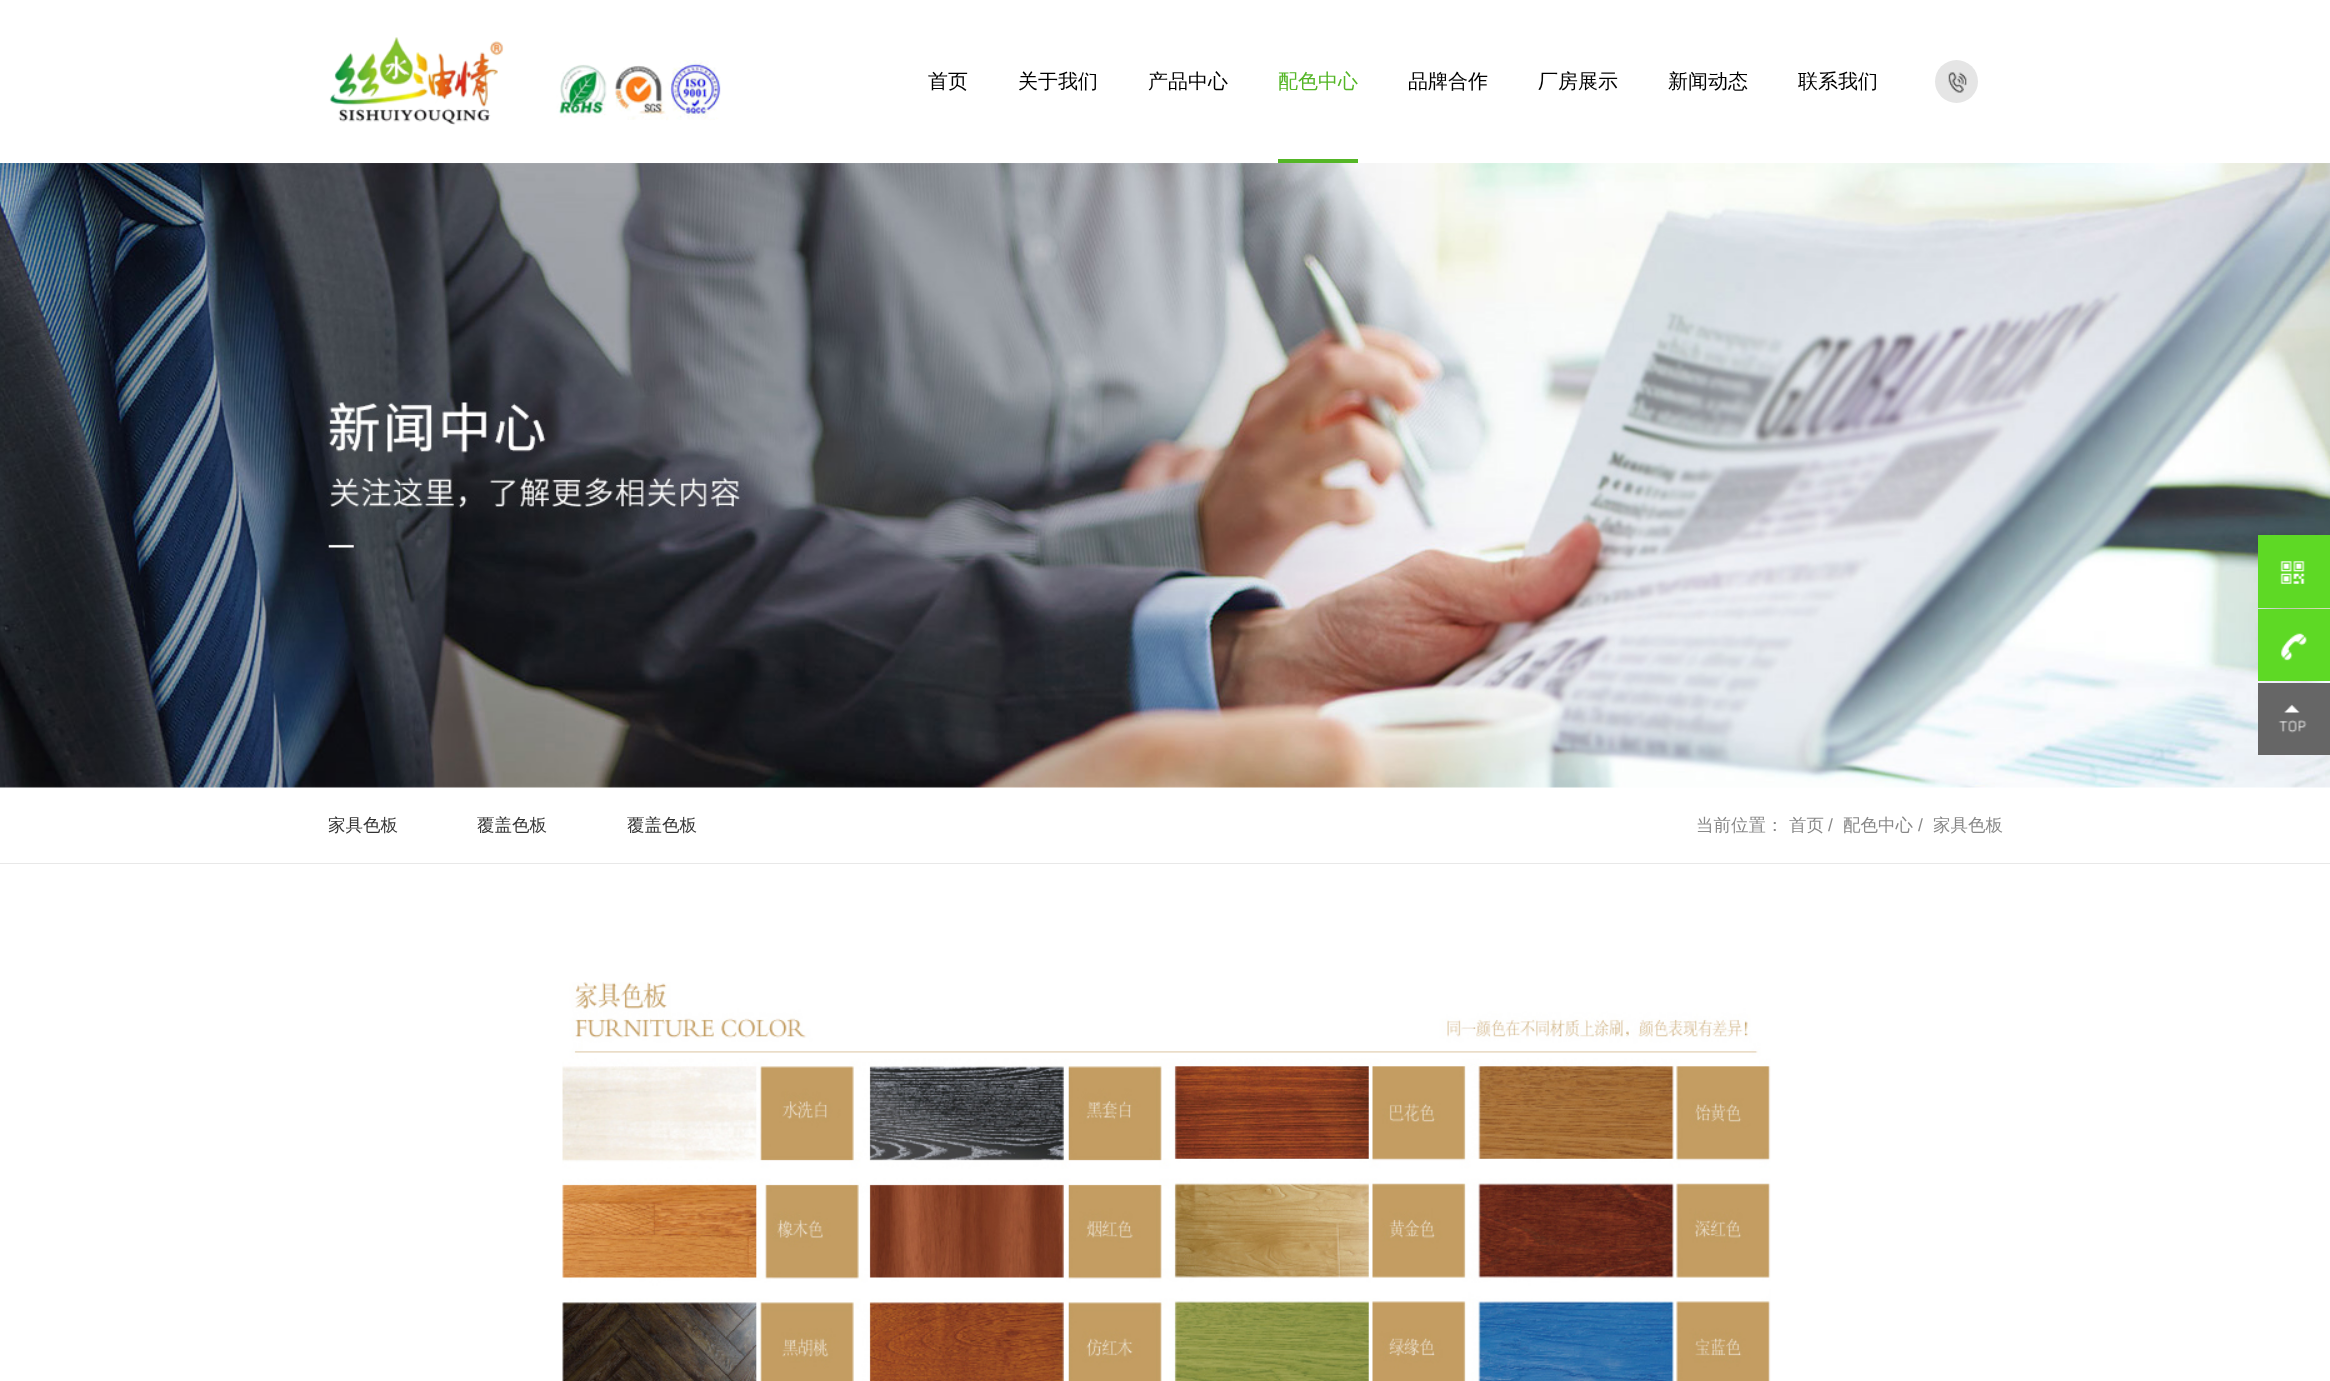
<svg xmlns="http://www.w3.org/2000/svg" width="2330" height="1381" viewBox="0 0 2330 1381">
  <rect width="100%" height="100%" fill="#ffffff"/>
  <image x="329" y="37" width="392" height="88" href="img1.png"/>
  <text x="928" y="88" font-family="WenQuanYi Zen Hei" font-size="20" font-weight="500" fill="#000000">首页</text>
  <text x="1018" y="88" font-family="WenQuanYi Zen Hei" font-size="20" font-weight="500" fill="#000000">关于我们</text>
  <text x="1148" y="88" font-family="WenQuanYi Zen Hei" font-size="20" font-weight="500" fill="#000000">产品中心</text>
  <text x="1278" y="88" font-family="WenQuanYi Zen Hei" font-size="20" font-weight="500" fill="#54b626">配色中心</text>
  <rect x="1278" y="159" width="80" height="4" fill="#54b626"/>
  <text x="1408" y="88" font-family="WenQuanYi Zen Hei" font-size="20" font-weight="500" fill="#000000">品牌合作</text>
  <text x="1538" y="88" font-family="WenQuanYi Zen Hei" font-size="20" font-weight="500" fill="#000000">厂房展示</text>
  <text x="1668" y="88" font-family="WenQuanYi Zen Hei" font-size="20" font-weight="500" fill="#000000">新闻动态</text>
  <text x="1798" y="88" font-family="WenQuanYi Zen Hei" font-size="20" font-weight="500" fill="#000000">联系我们</text>
  <circle cx="1956.5" cy="81.5" r="21.5" fill="#e5e5e5"/>
  <image x="1948" y="72" width="19" height="21" href="img2.png"/>
  <image x="0" y="163" width="2330" height="625" href="img3.png"/>
  <rect x="2258" y="535" width="72" height="73" fill="#5ed925"/>
  <image x="2280" y="561" width="25" height="23" href="img4.png"/>
  <rect x="2258" y="609" width="72" height="72" fill="#5ed925"/>
  <image x="2281" y="633" width="26" height="28" href="img5.png"/>
  <rect x="2258" y="683" width="72" height="72" fill="#666666"/>
  <image x="2278" y="704" width="29" height="29" href="img6.png"/>
  <rect x="0" y="863" width="2330" height="1" fill="#e8e8e8"/>
  <text x="328" y="831" font-family="WenQuanYi Zen Hei" font-size="17.5" font-weight="500" fill="#333333">家具色板</text>
  <text x="477" y="831" font-family="WenQuanYi Zen Hei" font-size="17.5" font-weight="500" fill="#333333">覆盖色板</text>
  <text x="627" y="831" font-family="WenQuanYi Zen Hei" font-size="17.5" font-weight="500" fill="#333333">覆盖色板</text>
  <text x="1696" y="831" font-family="WenQuanYi Zen Hei" font-size="17.5" font-weight="500" fill="#888888">当前位置：</text>
  <text x="1789" y="831" font-family="WenQuanYi Zen Hei" font-size="17.5" font-weight="500" fill="#888888">首页</text>
  <text x="1828" y="831" font-family="Liberation Sans" font-size="17.5" fill="#888888">/</text>
  <text x="1843" y="831" font-family="WenQuanYi Zen Hei" font-size="17.5" font-weight="500" fill="#888888">配色中心</text>
  <text x="1918" y="831" font-family="Liberation Sans" font-size="17.5" fill="#888888">/</text>
  <text x="1933" y="831" font-family="WenQuanYi Zen Hei" font-size="17.5" font-weight="500" fill="#888888">家具色板</text>
  <image x="562" y="982" width="1209" height="399" href="img7.png"/>
</svg>
